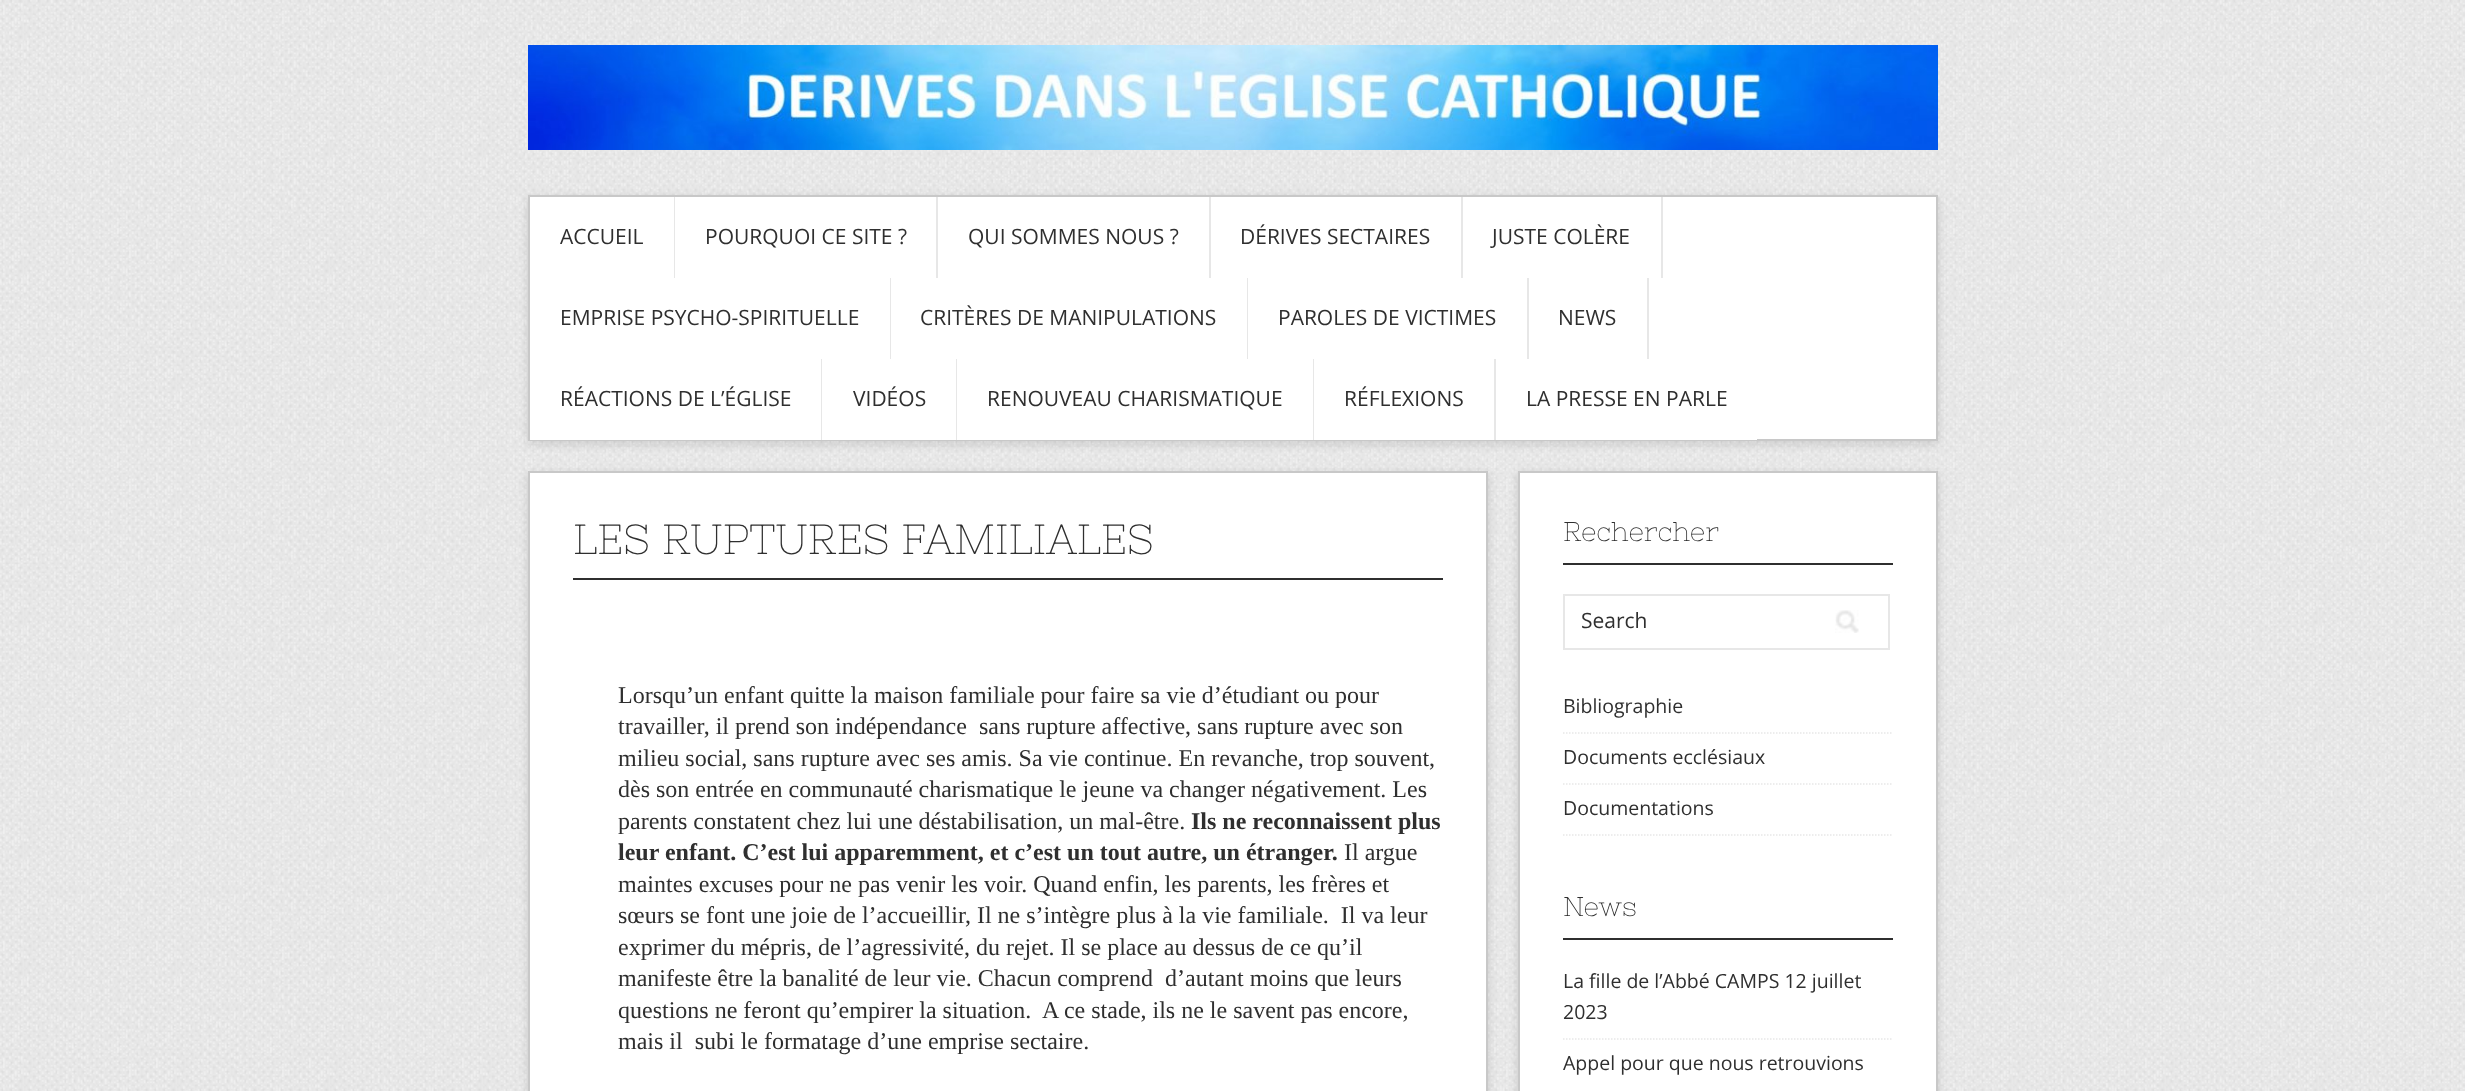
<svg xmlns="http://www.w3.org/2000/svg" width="2465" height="1091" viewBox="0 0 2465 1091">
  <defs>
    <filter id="blur1" x="-50%" y="-200%" width="200%" height="500%"><feGaussianBlur stdDeviation="4"/></filter>
  </defs>
  <rect width="100%" height="100%" fill="#ffffff"/>
  <image x="0" y="0" width="2465" height="1091" href="img1.png"/>
  <image x="528" y="45" width="1410" height="105" href="img2.png"/>
  <rect x="528" y="198" width="1410" height="246" fill="#323232" fill-opacity="0.15" filter="url(#blur1)"/>
  <rect x="529" y="196" width="1408" height="244" fill="#ffffff" stroke="#c8c8c8" stroke-width="2"/>
  <rect x="674" y="197" width="1" height="81" fill="#e7e7e7"/>
  <text x="560" y="244" font-family="Open Sans" font-size="21" fill="#2f2f2f">ACCUEIL</text>
  <rect x="936" y="197" width="2" height="81" fill="#e7e7e7"/>
  <text x="705" y="244" font-family="Open Sans" font-size="21" fill="#2f2f2f">POURQUOI CE SITE ?</text>
  <rect x="1209" y="197" width="2" height="81" fill="#e7e7e7"/>
  <text x="968" y="244" font-family="Open Sans" font-size="21" fill="#2f2f2f">QUI SOMMES NOUS ?</text>
  <rect x="1461" y="197" width="2" height="81" fill="#e7e7e7"/>
  <text x="1240" y="244" font-family="Open Sans" font-size="21" fill="#2f2f2f">DÉRIVES SECTAIRES</text>
  <rect x="1661" y="197" width="2" height="81" fill="#e7e7e7"/>
  <text x="1492" y="244" font-family="Open Sans" font-size="21" fill="#2f2f2f">JUSTE COLÈRE</text>
  <rect x="890" y="278" width="1" height="81" fill="#e7e7e7"/>
  <text x="560" y="325" font-family="Open Sans" font-size="21" fill="#2f2f2f">EMPRISE PSYCHO-SPIRITUELLE</text>
  <rect x="1247" y="278" width="1" height="81" fill="#e7e7e7"/>
  <text x="920" y="325" font-family="Open Sans" font-size="21" fill="#2f2f2f">CRITÈRES DE MANIPULATIONS</text>
  <rect x="1527" y="278" width="2" height="81" fill="#e7e7e7"/>
  <text x="1278" y="325" font-family="Open Sans" font-size="21" fill="#2f2f2f">PAROLES DE VICTIMES</text>
  <rect x="1647" y="278" width="2" height="81" fill="#e7e7e7"/>
  <text x="1558" y="325" font-family="Open Sans" font-size="21" fill="#2f2f2f">NEWS</text>
  <rect x="530" y="439" width="291" height="1" fill="#ffffff"/>
  <rect x="821" y="359" width="1" height="81" fill="#e7e7e7"/>
  <text x="560" y="406" font-family="Open Sans" font-size="21" fill="#2f2f2f">RÉACTIONS DE L’ÉGLISE</text>
  <rect x="822" y="439" width="134" height="1" fill="#ffffff"/>
  <rect x="956" y="359" width="1" height="81" fill="#e7e7e7"/>
  <text x="853" y="406" font-family="Open Sans" font-size="21" fill="#2f2f2f">VIDÉOS</text>
  <rect x="957" y="439" width="356" height="1" fill="#ffffff"/>
  <rect x="1313" y="359" width="1" height="81" fill="#e7e7e7"/>
  <text x="987" y="406" font-family="Open Sans" font-size="21" fill="#2f2f2f">RENOUVEAU CHARISMATIQUE</text>
  <rect x="1314" y="439" width="180" height="1" fill="#ffffff"/>
  <rect x="1494" y="359" width="2" height="81" fill="#e7e7e7"/>
  <text x="1344" y="406" font-family="Open Sans" font-size="21" fill="#2f2f2f">RÉFLEXIONS</text>
  <rect x="1496" y="439" width="261" height="1" fill="#ffffff"/>
  <text x="1526" y="406" font-family="Open Sans" font-size="21" fill="#2f2f2f">LA PRESSE EN PARLE</text>
  <rect x="528" y="474" width="960" height="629" fill="#323232" fill-opacity="0.15" filter="url(#blur1)"/>
  <rect x="529" y="472" width="958" height="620" fill="#ffffff" stroke="#c8c8c8" stroke-width="2"/>
  <rect x="573" y="578" width="870" height="2" fill="#2f2f2f"/>
  <text x="573" y="554" font-family="Nixie One" font-size="42" fill="#2f2f2f">LES RUPTURES FAMILIALES</text>
  <text x="618" y="703" font-family="Liberation Serif" font-size="24" fill="#2f2f2f">Lorsqu’un enfant quitte la maison familiale pour faire sa vie d’étudiant ou pour</text>
  <text x="618" y="734" font-family="Liberation Serif" font-size="24" fill="#2f2f2f" xml:space="preserve">travailler, il prend son indépendance  sans rupture affective, sans rupture avec son</text>
  <text x="618" y="766" font-family="Liberation Serif" font-size="24" fill="#2f2f2f">milieu social, sans rupture avec ses amis. Sa vie continue. En revanche, trop souvent,</text>
  <text x="618" y="797" font-family="Liberation Serif" font-size="24" fill="#2f2f2f">dès son entrée en communauté charismatique le jeune va changer négativement. Les</text>
  <text x="618" y="829" font-family="Liberation Serif" font-size="24" fill="#2f2f2f">parents constatent chez lui une déstabilisation, un mal-être.</text>
  <text x="1191" y="829" font-family="Liberation Serif" font-size="24" font-weight="bold" fill="#2f2f2f">Ils ne reconnaissent plus</text>
  <text x="618" y="860" font-family="Liberation Serif" font-size="24" font-weight="bold" fill="#2f2f2f">leur enfant. C’est lui apparemment, et c’est un tout autre, un étranger.</text>
  <text x="1344" y="860" font-family="Liberation Serif" font-size="24" fill="#2f2f2f">Il argue</text>
  <text x="618" y="892" font-family="Liberation Serif" font-size="24" fill="#2f2f2f">maintes excuses pour ne pas venir les voir. Quand enfin, les parents, les frères et</text>
  <text x="618" y="923" font-family="Liberation Serif" font-size="24" fill="#2f2f2f" xml:space="preserve">sœurs se font une joie de l’accueillir, Il ne s’intègre plus à la vie familiale.  Il va leur</text>
  <text x="618" y="955" font-family="Liberation Serif" font-size="24" fill="#2f2f2f">exprimer du mépris, de l’agressivité, du rejet. Il se place au dessus de ce qu’il</text>
  <text x="618" y="986" font-family="Liberation Serif" font-size="24" fill="#2f2f2f" xml:space="preserve">manifeste être la banalité de leur vie. Chacun comprend  d’autant moins que leurs</text>
  <text x="618" y="1018" font-family="Liberation Serif" font-size="24" fill="#2f2f2f" xml:space="preserve">questions ne feront qu’empirer la situation.  A ce stade, ils ne le savent pas encore,</text>
  <text x="618" y="1049" font-family="Liberation Serif" font-size="24" fill="#2f2f2f" xml:space="preserve">mais il  subi le formatage d’une emprise sectaire.</text>
  <rect x="1518" y="474" width="420" height="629" fill="#323232" fill-opacity="0.15" filter="url(#blur1)"/>
  <rect x="1519" y="472" width="418" height="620" fill="#ffffff" stroke="#c8c8c8" stroke-width="2"/>
  <rect x="1563" y="563" width="330" height="2" fill="#2f2f2f"/>
  <text x="1563" y="541" font-family="Nixie One" font-size="27" fill="#2f2f2f">Rechercher</text>
  <rect x="1564" y="595" width="325" height="54" fill="none" stroke="#e7e7e7" stroke-width="2"/>
  <text x="1581" y="628" font-family="Open Sans" font-size="21" fill="#2f2f2f">Search</text>
  <image x="1835" y="610" width="24" height="23" href="img3.png"/>
  <path d="M1563 733H1893" fill="none" stroke="#e7e7e7" stroke-width="1.5" stroke-dasharray="1.5 1.5"/>
  <text x="1563" y="713" font-family="Open Sans" font-size="19.5" fill="#2f2f2f">Bibliographie</text>
  <path d="M1563 784H1893" fill="none" stroke="#e7e7e7" stroke-width="1.5" stroke-dasharray="1.5 1.5"/>
  <text x="1563" y="764" font-family="Open Sans" font-size="19.5" fill="#2f2f2f">Documents ecclésiaux</text>
  <path d="M1563 835H1893" fill="none" stroke="#e7e7e7" stroke-width="1.5" stroke-dasharray="1.5 1.5"/>
  <text x="1563" y="815" font-family="Open Sans" font-size="19.5" fill="#2f2f2f">Documentations</text>
  <rect x="1563" y="938" width="330" height="2" fill="#2f2f2f"/>
  <text x="1563" y="916" font-family="Nixie One" font-size="27" fill="#2f2f2f">News</text>
  <path d="M1563 1039H1893" fill="none" stroke="#e7e7e7" stroke-width="1.5" stroke-dasharray="1.5 1.5"/>
  <text x="1563" y="988" font-family="Open Sans" font-size="19.5" fill="#2f2f2f">La fille de l’Abbé CAMPS 12 juillet</text>
  <text x="1563" y="1019" font-family="Open Sans" font-size="19.5" fill="#2f2f2f">2023</text>
  <text x="1563" y="1070" font-family="Open Sans" font-size="19.5" fill="#2f2f2f">Appel pour que nous retrouvions</text>
</svg>
